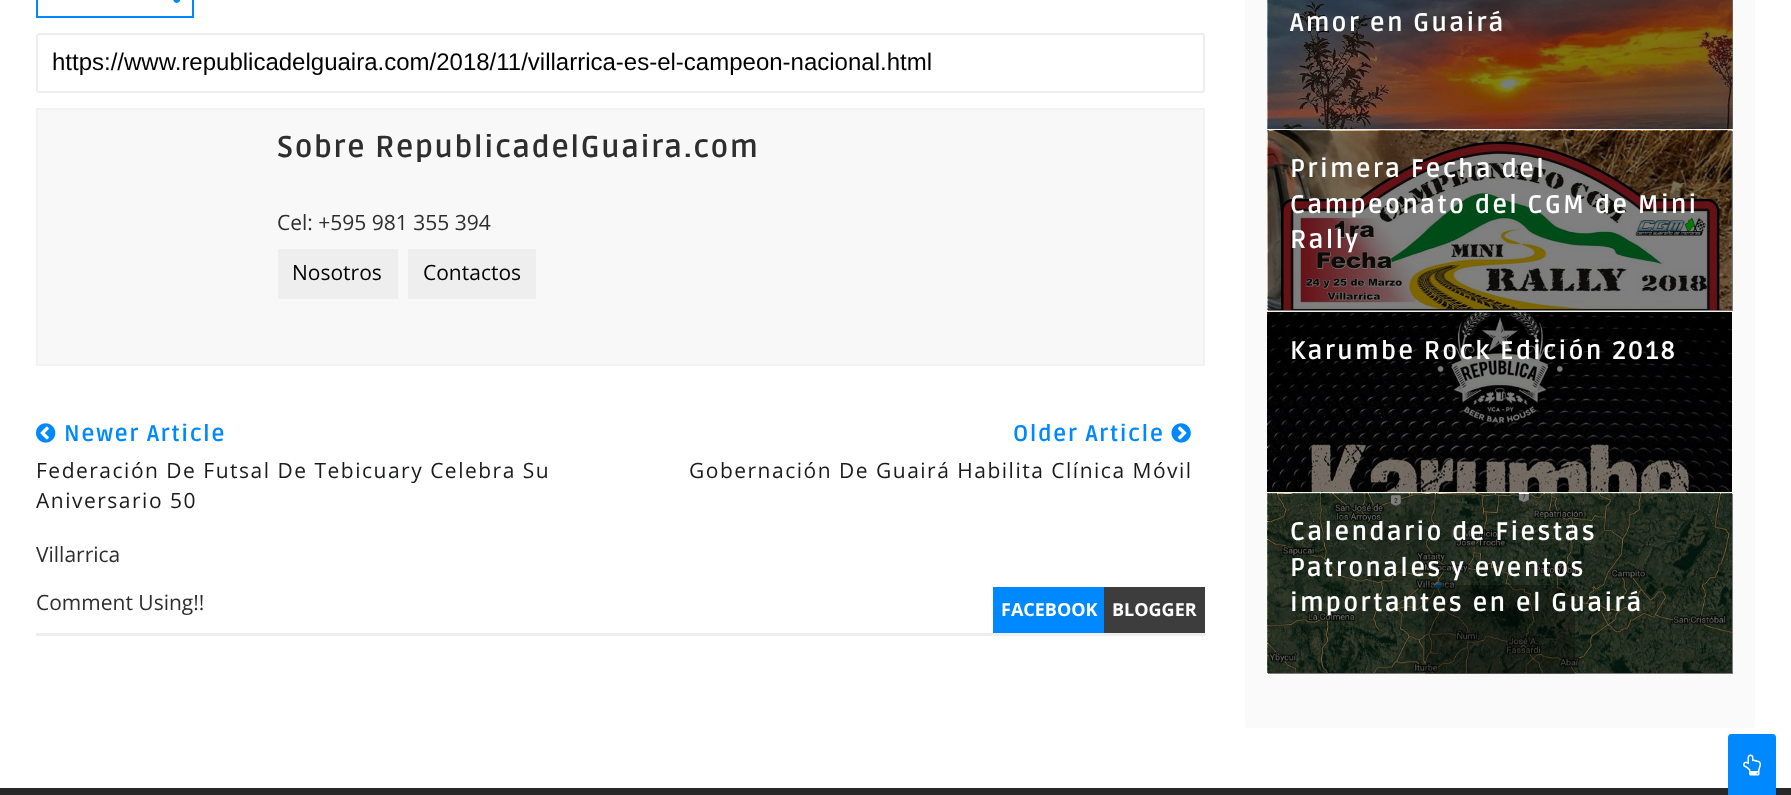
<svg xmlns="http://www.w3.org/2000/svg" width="1791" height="795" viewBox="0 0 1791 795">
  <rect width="100%" height="100%" fill="#ffffff"/>
  <rect x="37" y="-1" width="156" height="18" fill="none" stroke="#0088ff" stroke-width="2"/>
  <image x="173" y="0" width="8" height="3" href="img1.png"/>
  <rect x="37" y="34" width="1167" height="58" rx="2" fill="none" stroke="#eeeeee" stroke-width="2"/>
  <text x="52" y="70" font-family="Liberation Sans" font-size="24" fill="#000000">https://www.republicadelguaira.com/2018/11/villarrica-es-el-campeon-nacional.html</text>
  <rect x="37" y="109" width="1167" height="256" fill="#f8f8f8" stroke="#f2f2f2" stroke-width="2"/>
  <text x="277" y="157" font-family="Ruda" font-size="30" font-weight="bold" letter-spacing="1.5" fill="#2e2e2e">Sobre RepublicadelGuaira.com</text>
  <text x="277" y="230" font-family="Open Sans" font-size="21" fill="#2e2e2e">Cel: +595 981 355 394</text>
  <rect x="278" y="249" width="120" height="50" fill="#eeeeee"/>
  <text x="292" y="280" font-family="Open Sans" font-size="21" fill="#000000">Nosotros</text>
  <rect x="408" y="249" width="128" height="50" fill="#eeeeee"/>
  <text x="423" y="280" font-family="Open Sans" font-size="21" fill="#000000">Contactos</text>
  <image x="36" y="423" width="20" height="20" href="img2.png"/>
  <text x="64" y="441" font-family="Ruda" font-size="22.5" font-weight="bold" letter-spacing="1.5" fill="#0088ff">Newer Article</text>
  <text x="36" y="478" font-family="Open Sans" font-size="21" letter-spacing="1.5" fill="#1a1b1c">Federación De Futsal De Tebicuary Celebra Su</text>
  <text x="36" y="508" font-family="Open Sans" font-size="21" letter-spacing="1.5" fill="#1a1b1c">Aniversario 50</text>
  <text x="1013" y="441" font-family="Ruda" font-size="22.5" font-weight="bold" letter-spacing="1.5" fill="#0088ff">Older Article</text>
  <image x="1171" y="423" width="20" height="20" href="img3.png"/>
  <text x="689" y="478" font-family="Open Sans" font-size="21" letter-spacing="1.5" fill="#1a1b1c">Gobernación De Guairá Habilita Clínica Móvil</text>
  <text x="36" y="562" font-family="Open Sans" font-size="21" fill="#2e2e2e">Villarrica</text>
  <rect x="36" y="633" width="1169" height="3" fill="#eeeeee"/>
  <text x="36" y="610" font-family="Open Sans" font-size="21" fill="#2e2e2e">Comment Using!!</text>
  <rect x="993" y="587" width="111" height="46" fill="#0088ff"/>
  <text x="1001" y="616" font-family="Open Sans" font-size="18" font-weight="bold" fill="#ffffff">FACEBOOK</text>
  <rect x="1104" y="587" width="101" height="46" fill="#3d3d3d"/>
  <text x="1112" y="616" font-family="Open Sans" font-size="18" font-weight="bold" fill="#ffffff">BLOGGER</text>
  <rect x="1245" y="-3" width="510" height="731" rx="3" fill="#fafafa"/>
  <rect x="1268" y="494" width="465" height="180" fill="#7d7d7d"/>
  <rect x="1268" y="131" width="465" height="180" fill="#7d7d7d"/>
  <rect x="1732" y="0" width="1" height="129" fill="#7d7d7d"/>
  <image x="1267" y="0" width="466" height="129" href="img4.png"/>
  <text x="1290" y="31" font-family="Ruda" font-size="25.25" font-weight="bold" letter-spacing="2.25" fill="#ffffff">Amor en Guairá</text>
  <rect x="1268" y="129" width="465" height="2" fill="#f2f2f2"/>
  <image x="1267" y="130" width="466" height="180" href="img5.png"/>
  <text x="1290" y="177" font-family="Ruda" font-size="25.25" font-weight="bold" letter-spacing="2.25" fill="#ffffff">Primera Fecha del</text>
  <text x="1290" y="213" font-family="Ruda" font-size="25.25" font-weight="bold" letter-spacing="2.25" fill="#ffffff">Campeonato del CGM de Mini</text>
  <text x="1290" y="248" font-family="Ruda" font-size="25.25" font-weight="bold" letter-spacing="2.25" fill="#ffffff">Rally</text>
  <rect x="1268" y="311" width="465" height="2" fill="#f2f2f2"/>
  <image x="1267" y="312" width="465" height="180" href="img6.png"/>
  <text x="1290" y="359" font-family="Ruda" font-size="25.25" font-weight="bold" letter-spacing="2.25" fill="#ffffff">Karumbe Rock Edición 2018</text>
  <rect x="1268" y="492" width="465" height="2" fill="#f2f2f2"/>
  <image x="1267" y="493" width="465" height="180" href="img7.png"/>
  <rect x="1425" y="585" width="150" height="89" fill="#000000" fill-opacity="0.3"/>
  <text x="1290" y="540" font-family="Ruda" font-size="25.25" font-weight="bold" letter-spacing="2.25" fill="#ffffff">Calendario de Fiestas</text>
  <text x="1290" y="576" font-family="Ruda" font-size="25.25" font-weight="bold" letter-spacing="2.25" fill="#ffffff">Patronales y eventos</text>
  <text x="1290" y="611" font-family="Ruda" font-size="25.25" font-weight="bold" letter-spacing="2.25" fill="#ffffff">importantes en el Guairá</text>
  <rect x="0" y="788" width="1791" height="7" fill="#282828"/>
  <path d="M1731 734H1773C1774.5 734 1776 735.5 1776 737V795H1728V737C1728 735.5 1729.5 734 1731 734Z" fill="#0088ff"/>
  <image x="1743" y="754" width="18" height="22" href="img8.png"/>
</svg>
